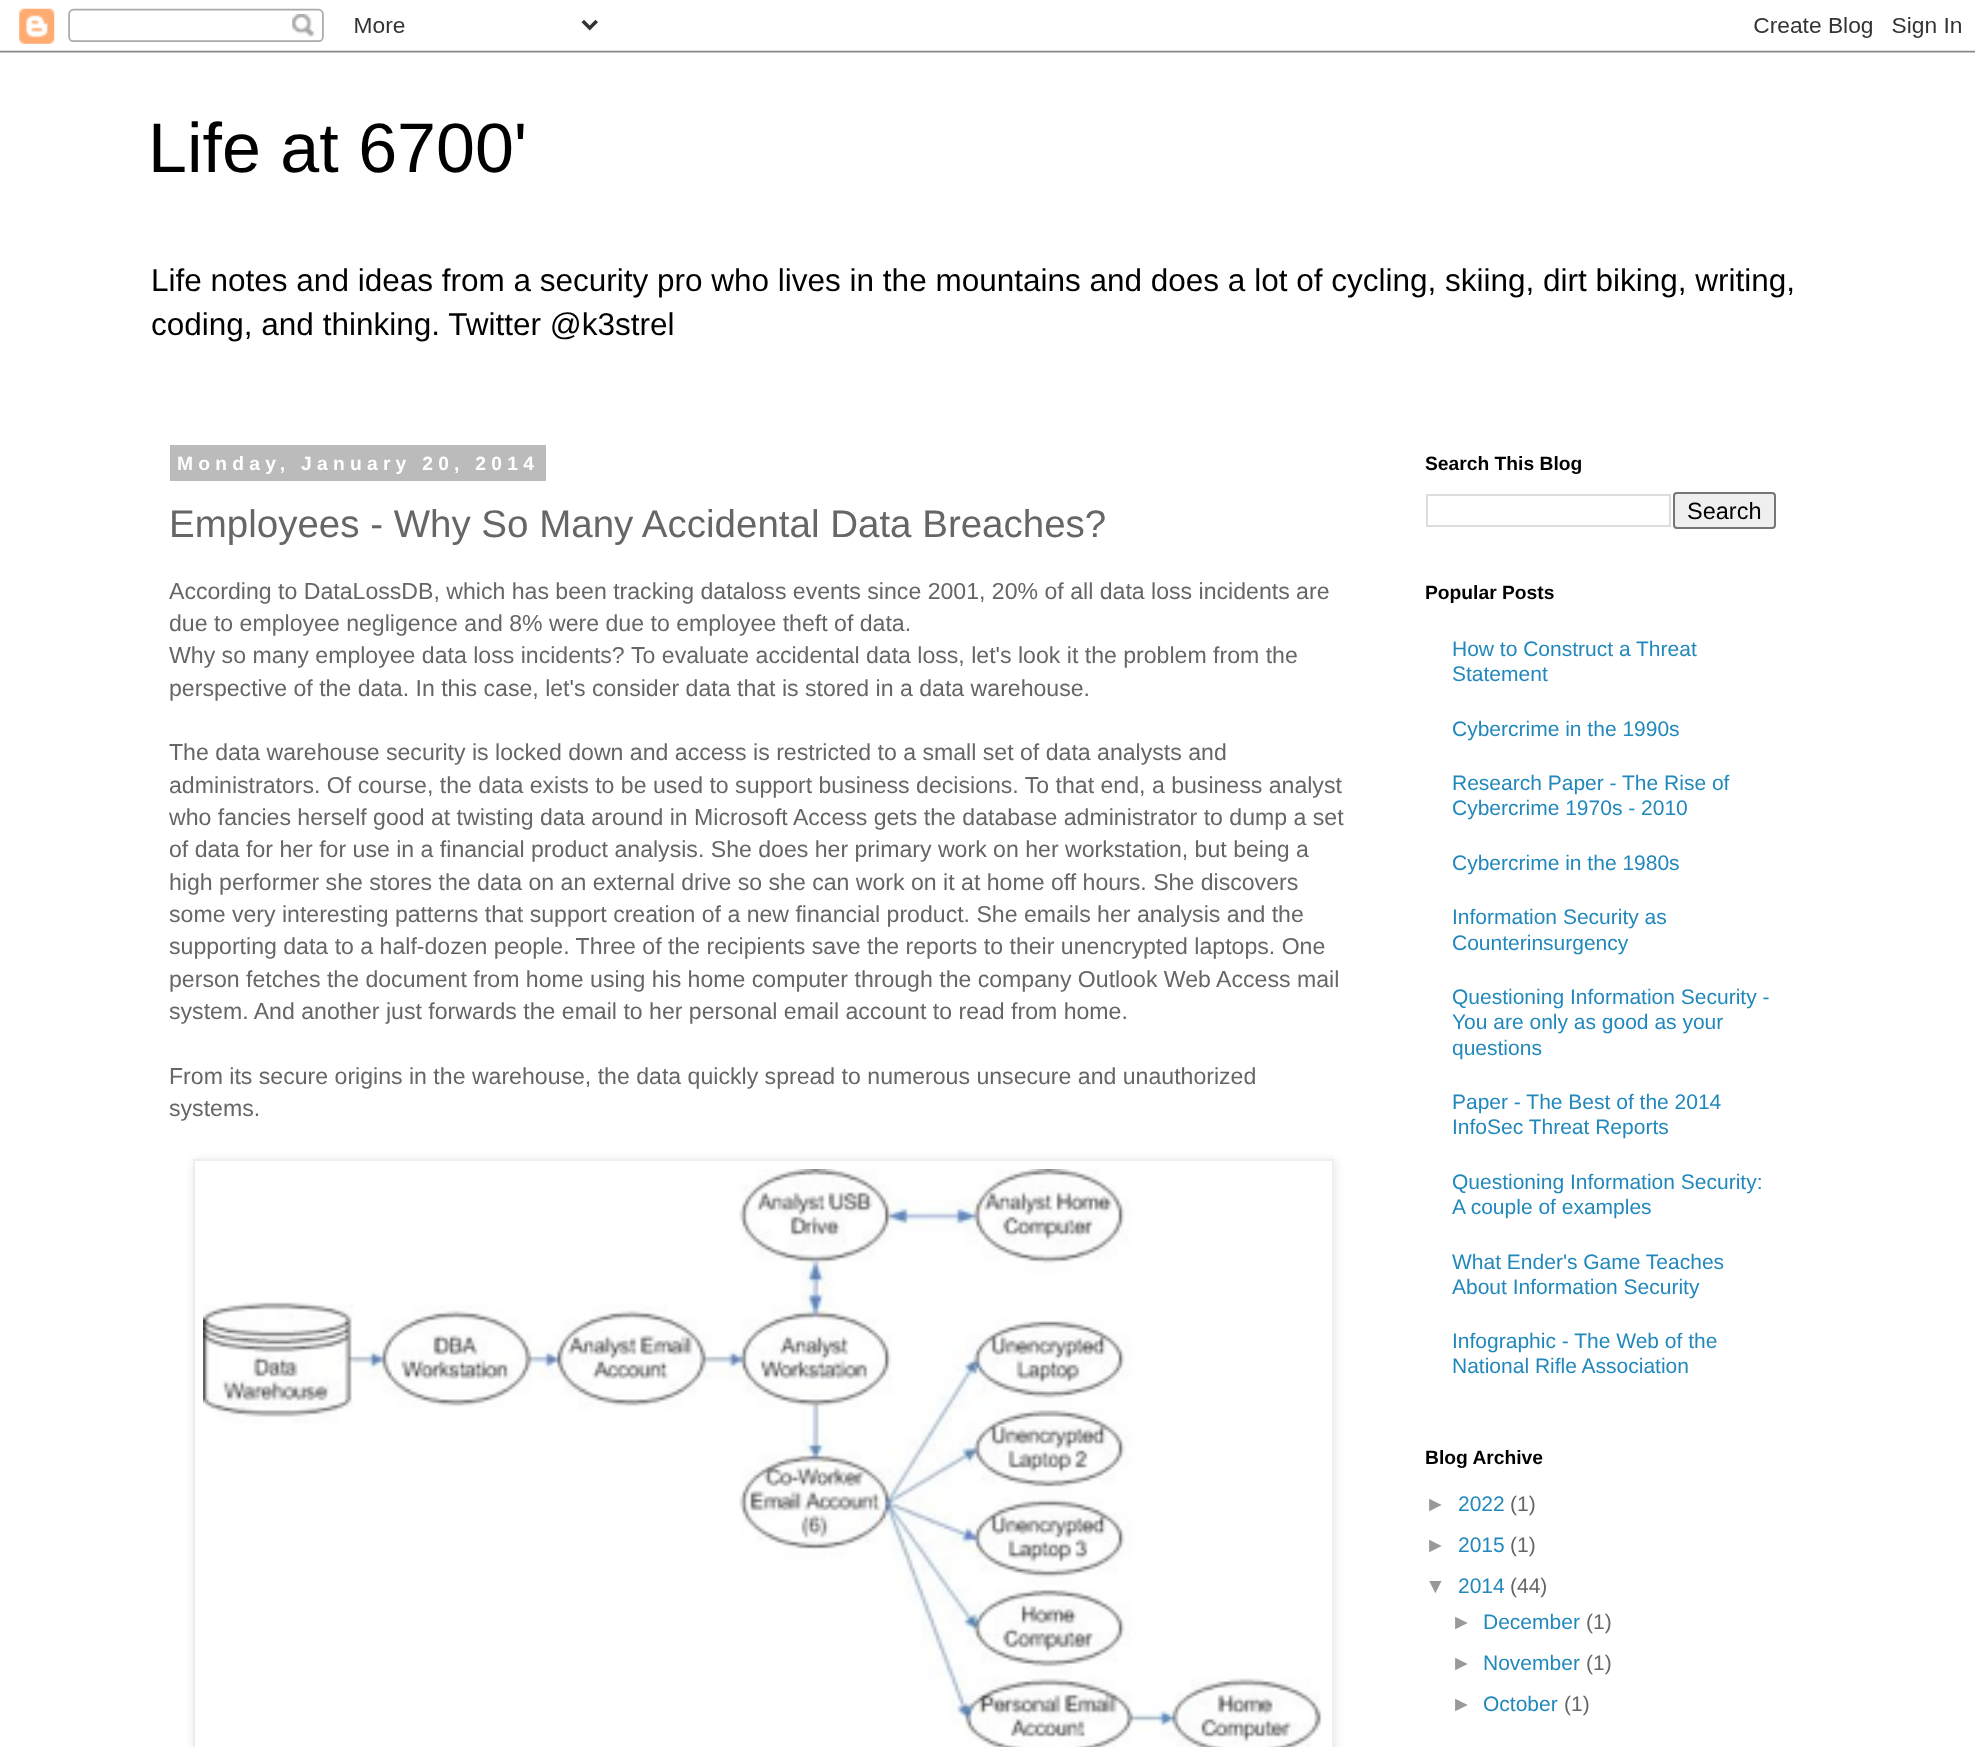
<svg xmlns="http://www.w3.org/2000/svg" width="1975" height="1747" viewBox="0 0 1975 1747">
  <defs>
    <filter id="blur1" x="-50%" y="-200%" width="200%" height="500%"><feGaussianBlur stdDeviation="4.5"/></filter>
  </defs>
  <rect width="100%" height="100%" fill="#ffffff"/>
  <image x="0" y="8" width="1975" height="45" href="img1.png"/>
  <text x="148" y="172" font-family="Liberation Sans" font-size="70" fill="#000000">Life at 6700'</text>
  <text x="151" y="291" font-family="Liberation Sans" font-size="31.5" fill="#000000">Life notes and ideas from a security pro who lives in the mountains and does a lot of cycling, skiing, dirt biking, writing,</text>
  <text x="151" y="335" font-family="Liberation Sans" font-size="31.5" fill="#000000">coding, and thinking. Twitter @k3strel</text>
  <rect x="170" y="445" width="376" height="36" fill="#bbbbbb"/>
  <text x="177" y="470" font-family="Liberation Sans" font-size="19.25" font-weight="bold" letter-spacing="5.25" fill="#ffffff">Monday, January 20, 2014</text>
  <text x="169" y="537" font-family="Liberation Sans" font-size="38.5" fill="#666666">Employees - Why So Many Accidental Data Breaches?</text>
  <text x="169" y="599" font-family="Liberation Sans" font-size="23.1" fill="#666666">According to DataLossDB, which has been tracking dataloss events since 2001, 20% of all data loss incidents are</text>
  <text x="169" y="631" font-family="Liberation Sans" font-size="23.1" fill="#666666">due to employee negligence and 8% were due to employee theft of data.</text>
  <text x="169" y="663" font-family="Liberation Sans" font-size="23.1" fill="#666666">Why so many employee data loss incidents?</text>
  <text x="631" y="663" font-family="Liberation Sans" font-size="23.1" fill="#666666">To evaluate accidental data loss, let's look it the problem from the</text>
  <text x="169" y="696" font-family="Liberation Sans" font-size="23.1" fill="#666666">perspective of the data. In this case, let's consider data that is stored in a data warehouse.</text>
  <text x="169" y="760" font-family="Liberation Sans" font-size="23.1" fill="#666666">The data warehouse security is locked down and access is restricted to a small set of data analysts and</text>
  <text x="169" y="793" font-family="Liberation Sans" font-size="23.1" fill="#666666">administrators. Of course, the data exists to be used to support business decisions. To that end, a business analyst</text>
  <text x="169" y="825" font-family="Liberation Sans" font-size="23.1" fill="#666666">who fancies herself good at twisting data around in Microsoft Access gets the database administrator to dump a set</text>
  <text x="169" y="857" font-family="Liberation Sans" font-size="23.1" fill="#666666">of data for her for use in a financial product analysis. She does her primary work on her workstation, but being a</text>
  <text x="169" y="890" font-family="Liberation Sans" font-size="23.1" fill="#666666">high performer she stores the data on an external drive so she can work on it at home off hours. She discovers</text>
  <text x="169" y="922" font-family="Liberation Sans" font-size="23.1" fill="#666666">some very interesting patterns that support creation of a new financial product. She emails her analysis and the</text>
  <text x="169" y="954" font-family="Liberation Sans" font-size="23.1" fill="#666666">supporting data to a half-dozen people. Three of the recipients save the reports to their unencrypted laptops. One</text>
  <text x="169" y="987" font-family="Liberation Sans" font-size="23.1" fill="#666666">person fetches the document from home using his home computer through the company Outlook Web Access mail</text>
  <text x="169" y="1019" font-family="Liberation Sans" font-size="23.1" fill="#666666">system. And another just forwards the email to her personal email account to read from home.</text>
  <text x="169" y="1084" font-family="Liberation Sans" font-size="23.1" fill="#666666">From its secure origins in the warehouse, the data quickly spread to numerous unsecure and unauthorized</text>
  <text x="169" y="1116" font-family="Liberation Sans" font-size="23.1" fill="#666666">systems.</text>
  <rect x="194" y="1160" width="1141" height="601" fill="#000000" fill-opacity="0.1" filter="url(#blur1)"/>
  <rect x="194" y="1160" width="1139" height="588" fill="#ffffff" stroke="#eeeeee" stroke-width="2"/>
  <image x="203" y="1169" width="1119" height="578" href="img2.png"/>
  <text x="1425" y="470" font-family="Liberation Sans" font-size="19.25" font-weight="bold" fill="#000000">Search This Blog</text>
  <rect x="1427" y="495" width="243" height="31" fill="none" stroke="#dddddd" stroke-width="2"/>
  <rect x="1674" y="493" width="101" height="35" rx="3" fill="#efefef" stroke="#767676" stroke-width="2"/>
  <text x="1687" y="519" font-family="Liberation Sans" font-size="23.5" fill="#000000">Search</text>
  <text x="1425" y="599" font-family="Liberation Sans" font-size="19.25" font-weight="bold" fill="#000000">Popular Posts</text>
  <text x="1452" y="656" font-family="Liberation Sans" font-size="21" fill="#2288bb">How to Construct a Threat</text>
  <text x="1452" y="681" font-family="Liberation Sans" font-size="21" fill="#2288bb">Statement</text>
  <text x="1452" y="736" font-family="Liberation Sans" font-size="21" fill="#2288bb">Cybercrime in the 1990s</text>
  <text x="1452" y="790" font-family="Liberation Sans" font-size="21" fill="#2288bb">Research Paper - The Rise of</text>
  <text x="1452" y="815" font-family="Liberation Sans" font-size="21" fill="#2288bb">Cybercrime 1970s - 2010</text>
  <text x="1452" y="870" font-family="Liberation Sans" font-size="21" fill="#2288bb">Cybercrime in the 1980s</text>
  <text x="1452" y="924" font-family="Liberation Sans" font-size="21" fill="#2288bb">Information Security as</text>
  <text x="1452" y="950" font-family="Liberation Sans" font-size="21" fill="#2288bb">Counterinsurgency</text>
  <text x="1452" y="1004" font-family="Liberation Sans" font-size="21" fill="#2288bb">Questioning Information Security -</text>
  <text x="1452" y="1029" font-family="Liberation Sans" font-size="21" fill="#2288bb">You are only as good as your</text>
  <text x="1452" y="1055" font-family="Liberation Sans" font-size="21" fill="#2288bb">questions</text>
  <text x="1452" y="1109" font-family="Liberation Sans" font-size="21" fill="#2288bb">Paper - The Best of the 2014</text>
  <text x="1452" y="1134" font-family="Liberation Sans" font-size="21" fill="#2288bb">InfoSec Threat Reports</text>
  <text x="1452" y="1189" font-family="Liberation Sans" font-size="21" fill="#2288bb">Questioning Information Security:</text>
  <text x="1452" y="1214" font-family="Liberation Sans" font-size="21" fill="#2288bb">A couple of examples</text>
  <text x="1452" y="1269" font-family="Liberation Sans" font-size="21" fill="#2288bb">What Ender's Game Teaches</text>
  <text x="1452" y="1294" font-family="Liberation Sans" font-size="21" fill="#2288bb">About Information Security</text>
  <text x="1452" y="1348" font-family="Liberation Sans" font-size="21" fill="#2288bb">Infographic - The Web of the</text>
  <text x="1452" y="1373" font-family="Liberation Sans" font-size="21" fill="#2288bb">National Rifle Association</text>
  <text x="1425" y="1464" font-family="Liberation Sans" font-size="19.25" font-weight="bold" fill="#000000">Blog Archive</text>
  <text x="1425" y="1511" font-family="Liberation Sans" font-size="21" fill="#999999">►</text>
  <text x="1458" y="1511" font-family="Liberation Sans" font-size="21" fill="#2288bb">2022</text>
  <text x="1510" y="1511" font-family="Liberation Sans" font-size="21" fill="#666666">(1)</text>
  <text x="1425" y="1552" font-family="Liberation Sans" font-size="21" fill="#999999">►</text>
  <text x="1458" y="1552" font-family="Liberation Sans" font-size="21" fill="#2288bb">2015</text>
  <text x="1510" y="1552" font-family="Liberation Sans" font-size="21" fill="#666666">(1)</text>
  <text x="1425" y="1593" font-family="Liberation Sans" font-size="21" fill="#999999">▼</text>
  <text x="1458" y="1593" font-family="Liberation Sans" font-size="21" fill="#2288bb">2014</text>
  <text x="1510" y="1593" font-family="Liberation Sans" font-size="21" fill="#666666">(44)</text>
  <text x="1451" y="1629" font-family="Liberation Sans" font-size="21" fill="#999999">►</text>
  <text x="1483" y="1629" font-family="Liberation Sans" font-size="21" fill="#2288bb">December</text>
  <text x="1586" y="1629" font-family="Liberation Sans" font-size="21" fill="#666666">(1)</text>
  <text x="1451" y="1670" font-family="Liberation Sans" font-size="21" fill="#999999">►</text>
  <text x="1483" y="1670" font-family="Liberation Sans" font-size="21" fill="#2288bb">November</text>
  <text x="1586" y="1670" font-family="Liberation Sans" font-size="21" fill="#666666">(1)</text>
  <text x="1451" y="1711" font-family="Liberation Sans" font-size="21" fill="#999999">►</text>
  <text x="1483" y="1711" font-family="Liberation Sans" font-size="21" fill="#2288bb">October</text>
  <text x="1564" y="1711" font-family="Liberation Sans" font-size="21" fill="#666666">(1)</text>
</svg>
